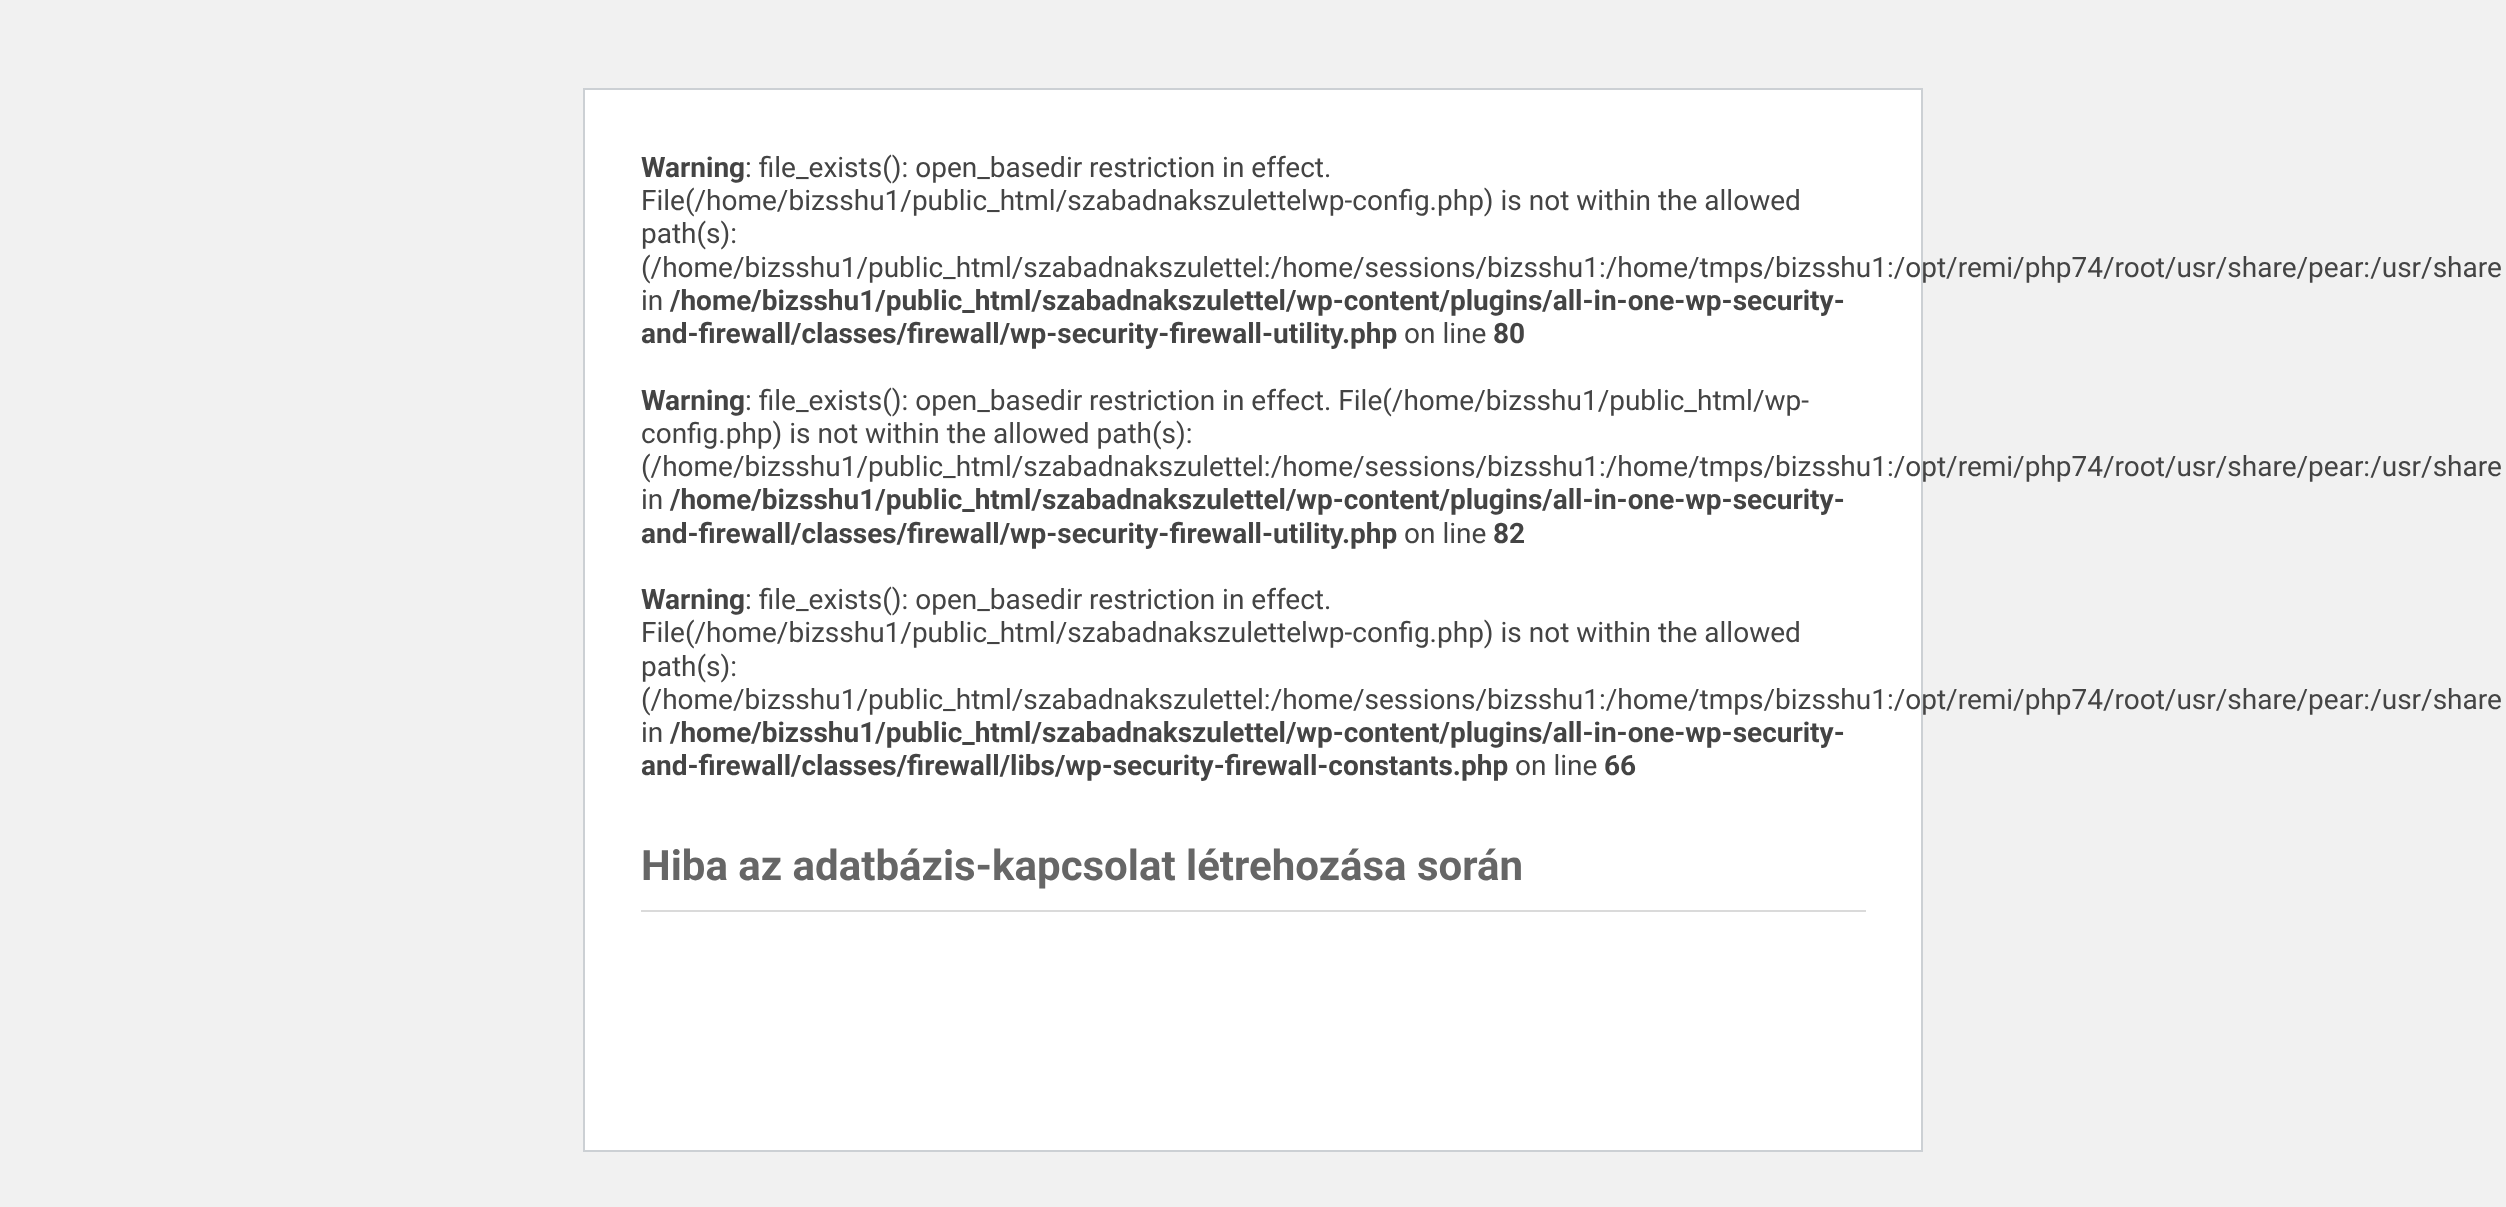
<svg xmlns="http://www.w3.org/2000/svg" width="2506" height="1207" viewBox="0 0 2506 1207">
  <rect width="100%" height="100%" fill="#f1f1f1"/>
  <rect x="584" y="89" width="1338" height="1062" fill="#ffffff" stroke="#ccd0d4" stroke-width="2"/>
  <text x="641" y="177" font-family="Roboto" font-size="28" font-weight="bold" fill="#444444">Warning</text>
  <text x="745" y="177" font-family="Roboto" font-size="28" fill="#444444">: file_exists(): open_basedir restriction in effect.</text>
  <text x="641" y="210" font-family="Roboto" font-size="28" fill="#444444">File(/home/bizsshu1/public_html/szabadnakszulettelwp-config.php) is not within the allowed</text>
  <text x="641" y="243" font-family="Roboto" font-size="28" fill="#444444">path(s):</text>
  <text x="641" y="277" font-family="Roboto" font-size="28" fill="#444444">(/home/bizsshu1/public_html/szabadnakszulettel:/home/sessions/bizsshu1:/home/tmps/bizsshu1:/opt/remi/php74/root/usr/share/pear:/usr/share</text>
  <text x="641" y="310" font-family="Roboto" font-size="28" fill="#444444">in</text>
  <text x="670" y="310" font-family="Roboto" font-size="28" font-weight="bold" fill="#444444">/home/bizsshu1/public_html/szabadnakszulettel/wp-content/plugins/all-in-one-wp-security-</text>
  <text x="641" y="343" font-family="Roboto" font-size="28" font-weight="bold" fill="#444444">and-firewall/classes/firewall/wp-security-firewall-utility.php</text>
  <text x="1404" y="343" font-family="Roboto" font-size="28" fill="#444444">on line</text>
  <text x="1493" y="343" font-family="Roboto" font-size="28" font-weight="bold" fill="#444444">80</text>
  <text x="641" y="410" font-family="Roboto" font-size="28" font-weight="bold" fill="#444444">Warning</text>
  <text x="745" y="410" font-family="Roboto" font-size="28" fill="#444444">: file_exists(): open_basedir restriction in effect. File(/home/bizsshu1/public_html/wp-</text>
  <text x="641" y="443" font-family="Roboto" font-size="28" fill="#444444">config.php) is not within the allowed path(s):</text>
  <text x="641" y="476" font-family="Roboto" font-size="28" fill="#444444">(/home/bizsshu1/public_html/szabadnakszulettel:/home/sessions/bizsshu1:/home/tmps/bizsshu1:/opt/remi/php74/root/usr/share/pear:/usr/share</text>
  <text x="641" y="509" font-family="Roboto" font-size="28" fill="#444444">in</text>
  <text x="670" y="509" font-family="Roboto" font-size="28" font-weight="bold" fill="#444444">/home/bizsshu1/public_html/szabadnakszulettel/wp-content/plugins/all-in-one-wp-security-</text>
  <text x="641" y="543" font-family="Roboto" font-size="28" font-weight="bold" fill="#444444">and-firewall/classes/firewall/wp-security-firewall-utility.php</text>
  <text x="1404" y="543" font-family="Roboto" font-size="28" fill="#444444">on line</text>
  <text x="1493" y="543" font-family="Roboto" font-size="28" font-weight="bold" fill="#444444">82</text>
  <text x="641" y="609" font-family="Roboto" font-size="28" font-weight="bold" fill="#444444">Warning</text>
  <text x="745" y="609" font-family="Roboto" font-size="28" fill="#444444">: file_exists(): open_basedir restriction in effect.</text>
  <text x="641" y="642" font-family="Roboto" font-size="28" fill="#444444">File(/home/bizsshu1/public_html/szabadnakszulettelwp-config.php) is not within the allowed</text>
  <text x="641" y="676" font-family="Roboto" font-size="28" fill="#444444">path(s):</text>
  <text x="641" y="709" font-family="Roboto" font-size="28" fill="#444444">(/home/bizsshu1/public_html/szabadnakszulettel:/home/sessions/bizsshu1:/home/tmps/bizsshu1:/opt/remi/php74/root/usr/share/pear:/usr/share</text>
  <text x="641" y="742" font-family="Roboto" font-size="28" fill="#444444">in</text>
  <text x="670" y="742" font-family="Roboto" font-size="28" font-weight="bold" fill="#444444">/home/bizsshu1/public_html/szabadnakszulettel/wp-content/plugins/all-in-one-wp-security-</text>
  <text x="641" y="775" font-family="Roboto" font-size="28" font-weight="bold" fill="#444444">and-firewall/classes/firewall/libs/wp-security-firewall-constants.php</text>
  <text x="1515" y="775" font-family="Roboto" font-size="28" fill="#444444">on line</text>
  <text x="1604" y="775" font-family="Roboto" font-size="28" font-weight="bold" fill="#444444">66</text>
  <rect x="641" y="910" width="1225" height="2" fill="#dadada"/>
  <text x="641" y="880" font-family="Roboto" font-size="42" font-weight="bold" fill="#666666">Hiba az adatbázis-kapcsolat létrehozása során</text>
</svg>
